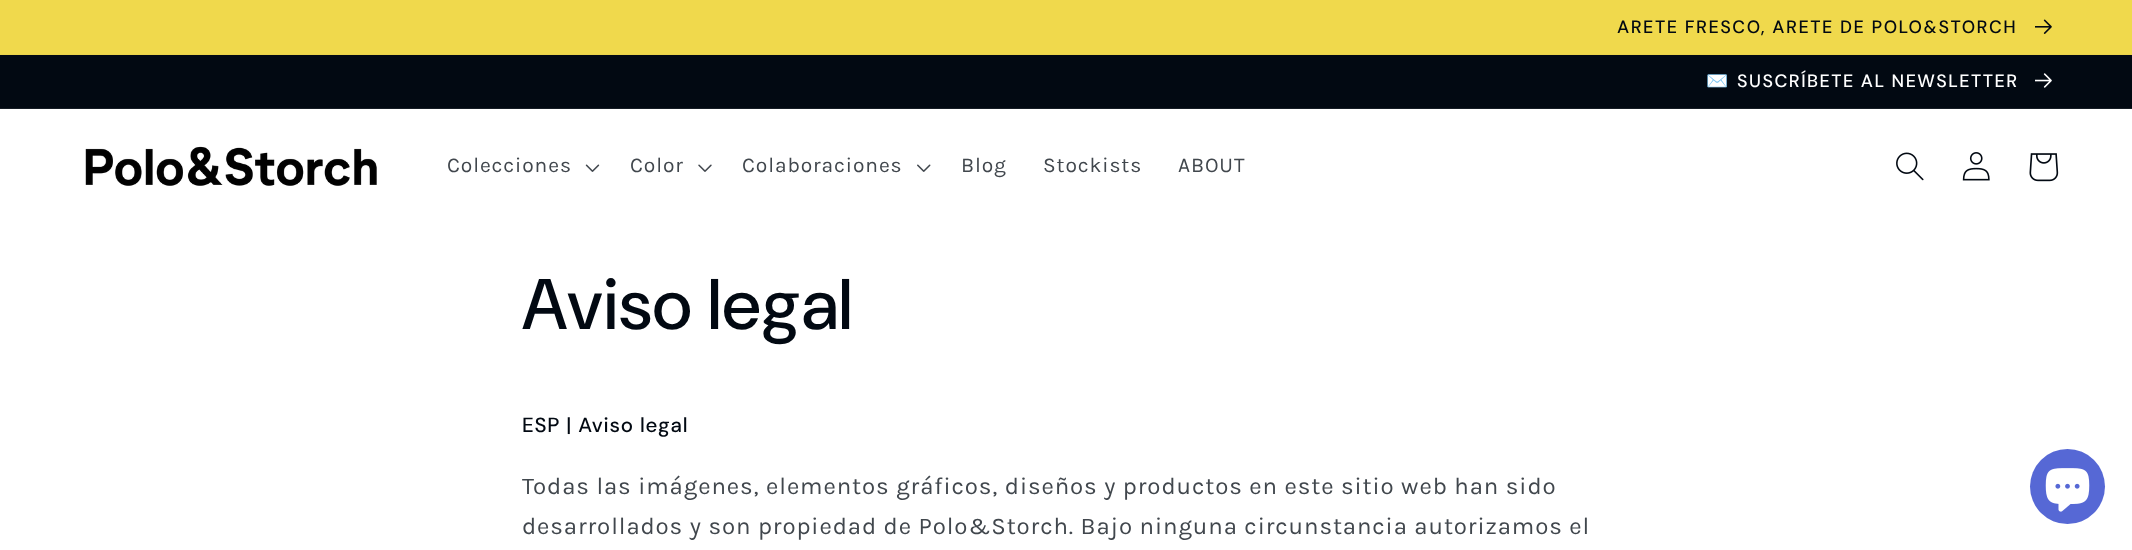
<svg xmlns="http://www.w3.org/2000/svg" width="2132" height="550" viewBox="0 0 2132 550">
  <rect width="100%" height="100%" fill="#ffffff"/>
  <rect x="0" y="54" width="2132" height="1" fill="#ebd44b"/>
  <rect x="0" y="0" width="2132" height="54" fill="#f0d94c"/>
  <text x="1617" y="33" font-family="'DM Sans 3'" font-size="17.9" font-weight="500" letter-spacing="1.5" fill="#020912">ARETE FRESCO, ARETE DE POLO&amp;STORCH</text>
  <image x="2035" y="19" width="17" height="15" href="img1.png"/>
  <rect x="0" y="55" width="2132" height="53" fill="#020912"/>
  <rect x="0" y="108" width="2132" height="1" fill="#161d25"/>
  <text x="1706" y="87" font-family="Noto Color Emoji" font-size="17.9" letter-spacing="1.5" fill="#ffffff">✉️</text>
  <text x="1737" y="87" font-family="'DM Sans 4'" font-size="17.9" font-weight="500" letter-spacing="1.5" fill="#ffffff">SUSCRÍBETE AL NEWSLETTER</text>
  <image x="2035" y="73" width="17" height="15" href="img2.png"/>
  <image x="85" y="146" width="292" height="40" href="img3.png"/>
  <text x="447" y="172" font-family="Karla" font-size="21" letter-spacing="0.9" fill="#41474d">Colecciones</text>
  <image x="585" y="164" width="15" height="8" href="img4.png"/>
  <text x="630" y="172" font-family="Karla" font-size="21" letter-spacing="0.9" fill="#41474d">Color</text>
  <image x="698" y="164" width="14" height="8" href="img5.png"/>
  <text x="742" y="172" font-family="Karla" font-size="21" letter-spacing="0.9" fill="#41474d">Colaboraciones</text>
  <image x="917" y="164" width="14" height="8" href="img6.png"/>
  <text x="961" y="172" font-family="Karla" font-size="21" letter-spacing="0.9" fill="#41474d">Blog</text>
  <text x="1043" y="172" font-family="Karla" font-size="21" letter-spacing="0.9" fill="#41474d">Stockists</text>
  <text x="1178" y="172" font-family="Karla" font-size="21" letter-spacing="0.9" fill="#41474d">ABOUT</text>
  <image x="1896" y="152" width="28" height="29" href="img7.png"/>
  <image x="1962" y="152" width="28" height="29" href="img8.png"/>
  <image x="2029" y="153" width="30" height="29" href="img9.png"/>
  <text x="522" y="329" font-family="DM Sans" font-size="71.5" font-weight="500" letter-spacing="0.8" fill="#020912">Aviso legal</text>
  <text x="522" y="432" font-family="'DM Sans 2'" font-size="20.5" font-weight="500" letter-spacing="0.8" fill="#020912">ESP | Aviso legal</text>
  <text x="522" y="494" font-family="Karla" font-size="24" letter-spacing="0.9" fill="#41474d">Todas las imágenes, elementos gráficos, diseños y productos en este sitio web han sido</text>
  <text x="522" y="534" font-family="Karla" font-size="24" letter-spacing="0.9" fill="#41474d">desarrollados y son propiedad de Polo&amp;Storch. Bajo ninguna circunstancia autorizamos el</text>
  <circle cx="2067.5" cy="486.5" r="37.5" fill="#5668d5"/>
  <image x="2045" y="468" width="45" height="44" href="img10.png"/>
</svg>
